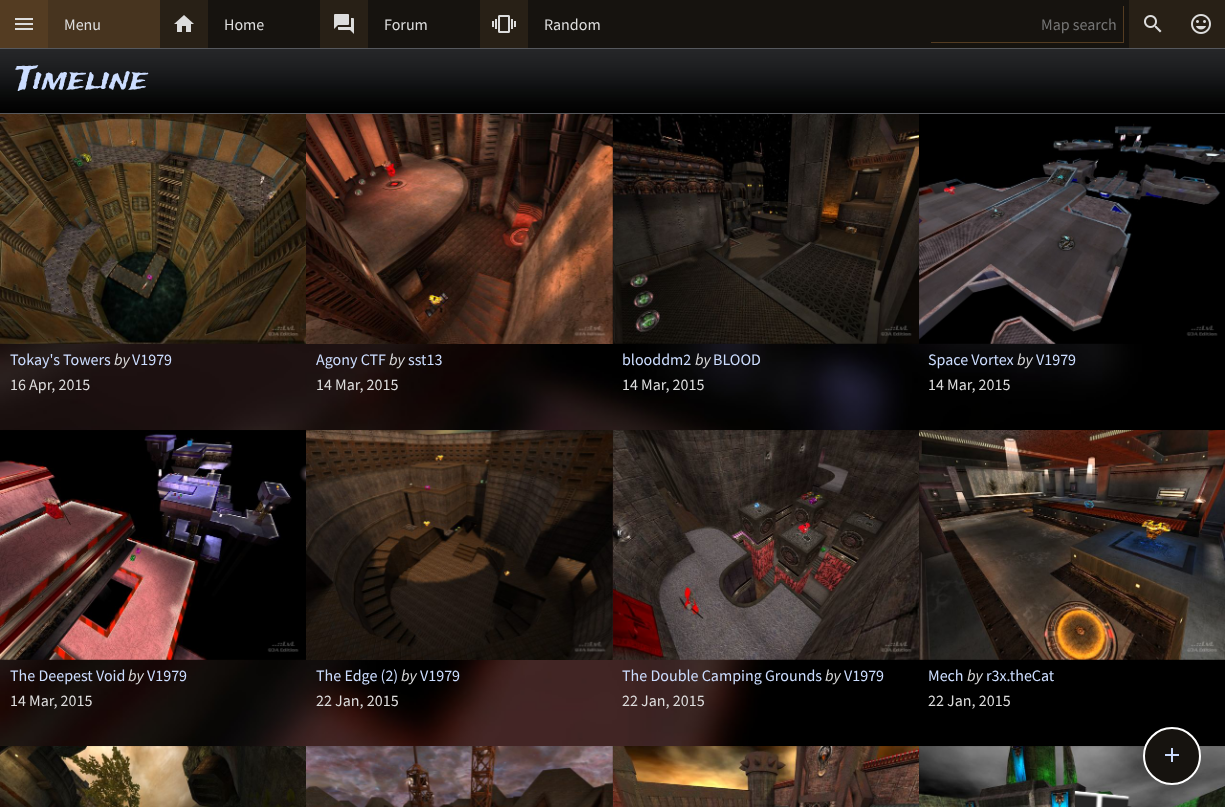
<svg xmlns="http://www.w3.org/2000/svg" width="1225" height="807" viewBox="0 0 1225 807">
  <rect width="100%" height="100%" fill="#ffffff"/>
  <rect x="208" y="0" width="921" height="48" fill="#16130f"/>
  <rect x="0" y="0" width="48" height="48" fill="#543c22"/>
  <image x="15" y="18" width="18" height="12" href="img1.png"/>
  <rect x="48" y="0" width="112" height="48" fill="#47341f"/>
  <text x="64" y="30" font-family="Source Sans Pro" font-size="16" fill="#dddddd">Menu</text>
  <rect x="160" y="0" width="48" height="48" fill="#282016"/>
  <image x="174" y="15" width="20" height="17" href="img2.png"/>
  <text x="224" y="30" font-family="Source Sans Pro" font-size="16" fill="#dddddd">Home</text>
  <rect x="320" y="0" width="48" height="48" fill="#282016"/>
  <image x="334" y="14" width="20" height="20" href="img3.png"/>
  <text x="384" y="30" font-family="Source Sans Pro" font-size="16" fill="#dddddd">Forum</text>
  <rect x="480" y="0" width="48" height="48" fill="#282016"/>
  <image x="492" y="15" width="24" height="18" href="img4.png"/>
  <text x="544" y="30" font-family="Source Sans Pro" font-size="16" fill="#dddddd">Random</text>
  <rect x="1123" y="6" width="1" height="37" fill="#543c22"/>
  <rect x="931" y="42" width="193" height="1" fill="#543c22"/>
  <text x="1041" y="30" font-family="Source Sans Pro" font-size="16" fill="#757575">Map search</text>
  <rect x="1129" y="0" width="96" height="48" fill="#282016"/>
  <image x="1144" y="15" width="18" height="18" href="img5.png"/>
  <image x="1191" y="14" width="20" height="20" href="img6.png"/>
  <image x="0" y="49" width="1225" height="64" href="img7.png"/>
  <rect x="0" y="48" width="1225" height="1" fill="#56585d"/>
  <rect x="0" y="113" width="1225" height="1" fill="#56585d"/>
  <text x="16" y="89" font-family="Trade Winds" font-size="32" fill="#ccddff">Timeline</text>
  <image x="0" y="114" width="1225" height="693" href="img8.png"/>
  <image x="0" y="114" width="306" height="230" href="img9.png"/>
  <text x="10" y="365" font-family="Source Sans Pro" font-size="16" fill="#ccddff">Tokay's Towers</text>
  <text x="114" y="365" font-family="Source Sans Pro" font-size="16" font-style="italic" fill="#dddddd">by</text>
  <text x="132" y="365" font-family="Source Sans Pro" font-size="16" fill="#ccddff">V1979</text>
  <text x="10" y="390" font-family="Source Sans Pro" font-size="16" fill="#dddddd">16 Apr, 2015</text>
  <image x="306" y="114" width="307" height="230" href="img10.png"/>
  <text x="316" y="365" font-family="Source Sans Pro" font-size="16" fill="#ccddff">Agony CTF</text>
  <text x="389" y="365" font-family="Source Sans Pro" font-size="16" font-style="italic" fill="#dddddd">by</text>
  <text x="408" y="365" font-family="Source Sans Pro" font-size="16" fill="#ccddff">sst13</text>
  <text x="316" y="390" font-family="Source Sans Pro" font-size="16" fill="#dddddd">14 Mar, 2015</text>
  <image x="613" y="114" width="306" height="230" href="img11.png"/>
  <text x="622" y="365" font-family="Source Sans Pro" font-size="16" fill="#ccddff">blooddm2</text>
  <text x="695" y="365" font-family="Source Sans Pro" font-size="16" font-style="italic" fill="#dddddd">by</text>
  <text x="713" y="365" font-family="Source Sans Pro" font-size="16" fill="#ccddff">BLOOD</text>
  <text x="622" y="390" font-family="Source Sans Pro" font-size="16" fill="#dddddd">14 Mar, 2015</text>
  <image x="919" y="114" width="306" height="230" href="img12.png"/>
  <text x="928" y="365" font-family="Source Sans Pro" font-size="16" fill="#ccddff">Space Vortex</text>
  <text x="1017" y="365" font-family="Source Sans Pro" font-size="16" font-style="italic" fill="#dddddd">by</text>
  <text x="1036" y="365" font-family="Source Sans Pro" font-size="16" fill="#ccddff">V1979</text>
  <text x="928" y="390" font-family="Source Sans Pro" font-size="16" fill="#dddddd">14 Mar, 2015</text>
  <image x="0" y="430" width="306" height="230" href="img13.png"/>
  <text x="10" y="681" font-family="Source Sans Pro" font-size="16" fill="#ccddff">The Deepest Void</text>
  <text x="128" y="681" font-family="Source Sans Pro" font-size="16" font-style="italic" fill="#dddddd">by</text>
  <text x="147" y="681" font-family="Source Sans Pro" font-size="16" fill="#ccddff">V1979</text>
  <text x="10" y="706" font-family="Source Sans Pro" font-size="16" fill="#dddddd">14 Mar, 2015</text>
  <image x="306" y="430" width="307" height="230" href="img14.png"/>
  <text x="316" y="681" font-family="Source Sans Pro" font-size="16" fill="#ccddff">The Edge (2)</text>
  <text x="401" y="681" font-family="Source Sans Pro" font-size="16" font-style="italic" fill="#dddddd">by</text>
  <text x="420" y="681" font-family="Source Sans Pro" font-size="16" fill="#ccddff">V1979</text>
  <text x="316" y="706" font-family="Source Sans Pro" font-size="16" fill="#dddddd">22 Jan, 2015</text>
  <image x="613" y="430" width="306" height="230" href="img15.png"/>
  <text x="622" y="681" font-family="Source Sans Pro" font-size="16" fill="#ccddff">The Double Camping Grounds</text>
  <text x="825" y="681" font-family="Source Sans Pro" font-size="16" font-style="italic" fill="#dddddd">by</text>
  <text x="844" y="681" font-family="Source Sans Pro" font-size="16" fill="#ccddff">V1979</text>
  <text x="622" y="706" font-family="Source Sans Pro" font-size="16" fill="#dddddd">22 Jan, 2015</text>
  <image x="919" y="430" width="306" height="230" href="img16.png"/>
  <text x="928" y="681" font-family="Source Sans Pro" font-size="16" fill="#ccddff">Mech</text>
  <text x="967" y="681" font-family="Source Sans Pro" font-size="16" font-style="italic" fill="#dddddd">by</text>
  <text x="986" y="681" font-family="Source Sans Pro" font-size="16" fill="#ccddff">r3x.theCat</text>
  <text x="928" y="706" font-family="Source Sans Pro" font-size="16" fill="#dddddd">22 Jan, 2015</text>
  <image x="0" y="746" width="306" height="61" href="img17.png"/>
  <image x="306" y="746" width="307" height="61" href="img18.png"/>
  <image x="613" y="746" width="306" height="61" href="img19.png"/>
  <image x="919" y="746" width="306" height="61" href="img21.png"/>
  <circle cx="1172" cy="756" r="28" fill="#16130f" stroke="#ffffff" stroke-width="2"/>
  <image x="1165" y="748" width="14" height="14" href="img20.png"/>
</svg>
